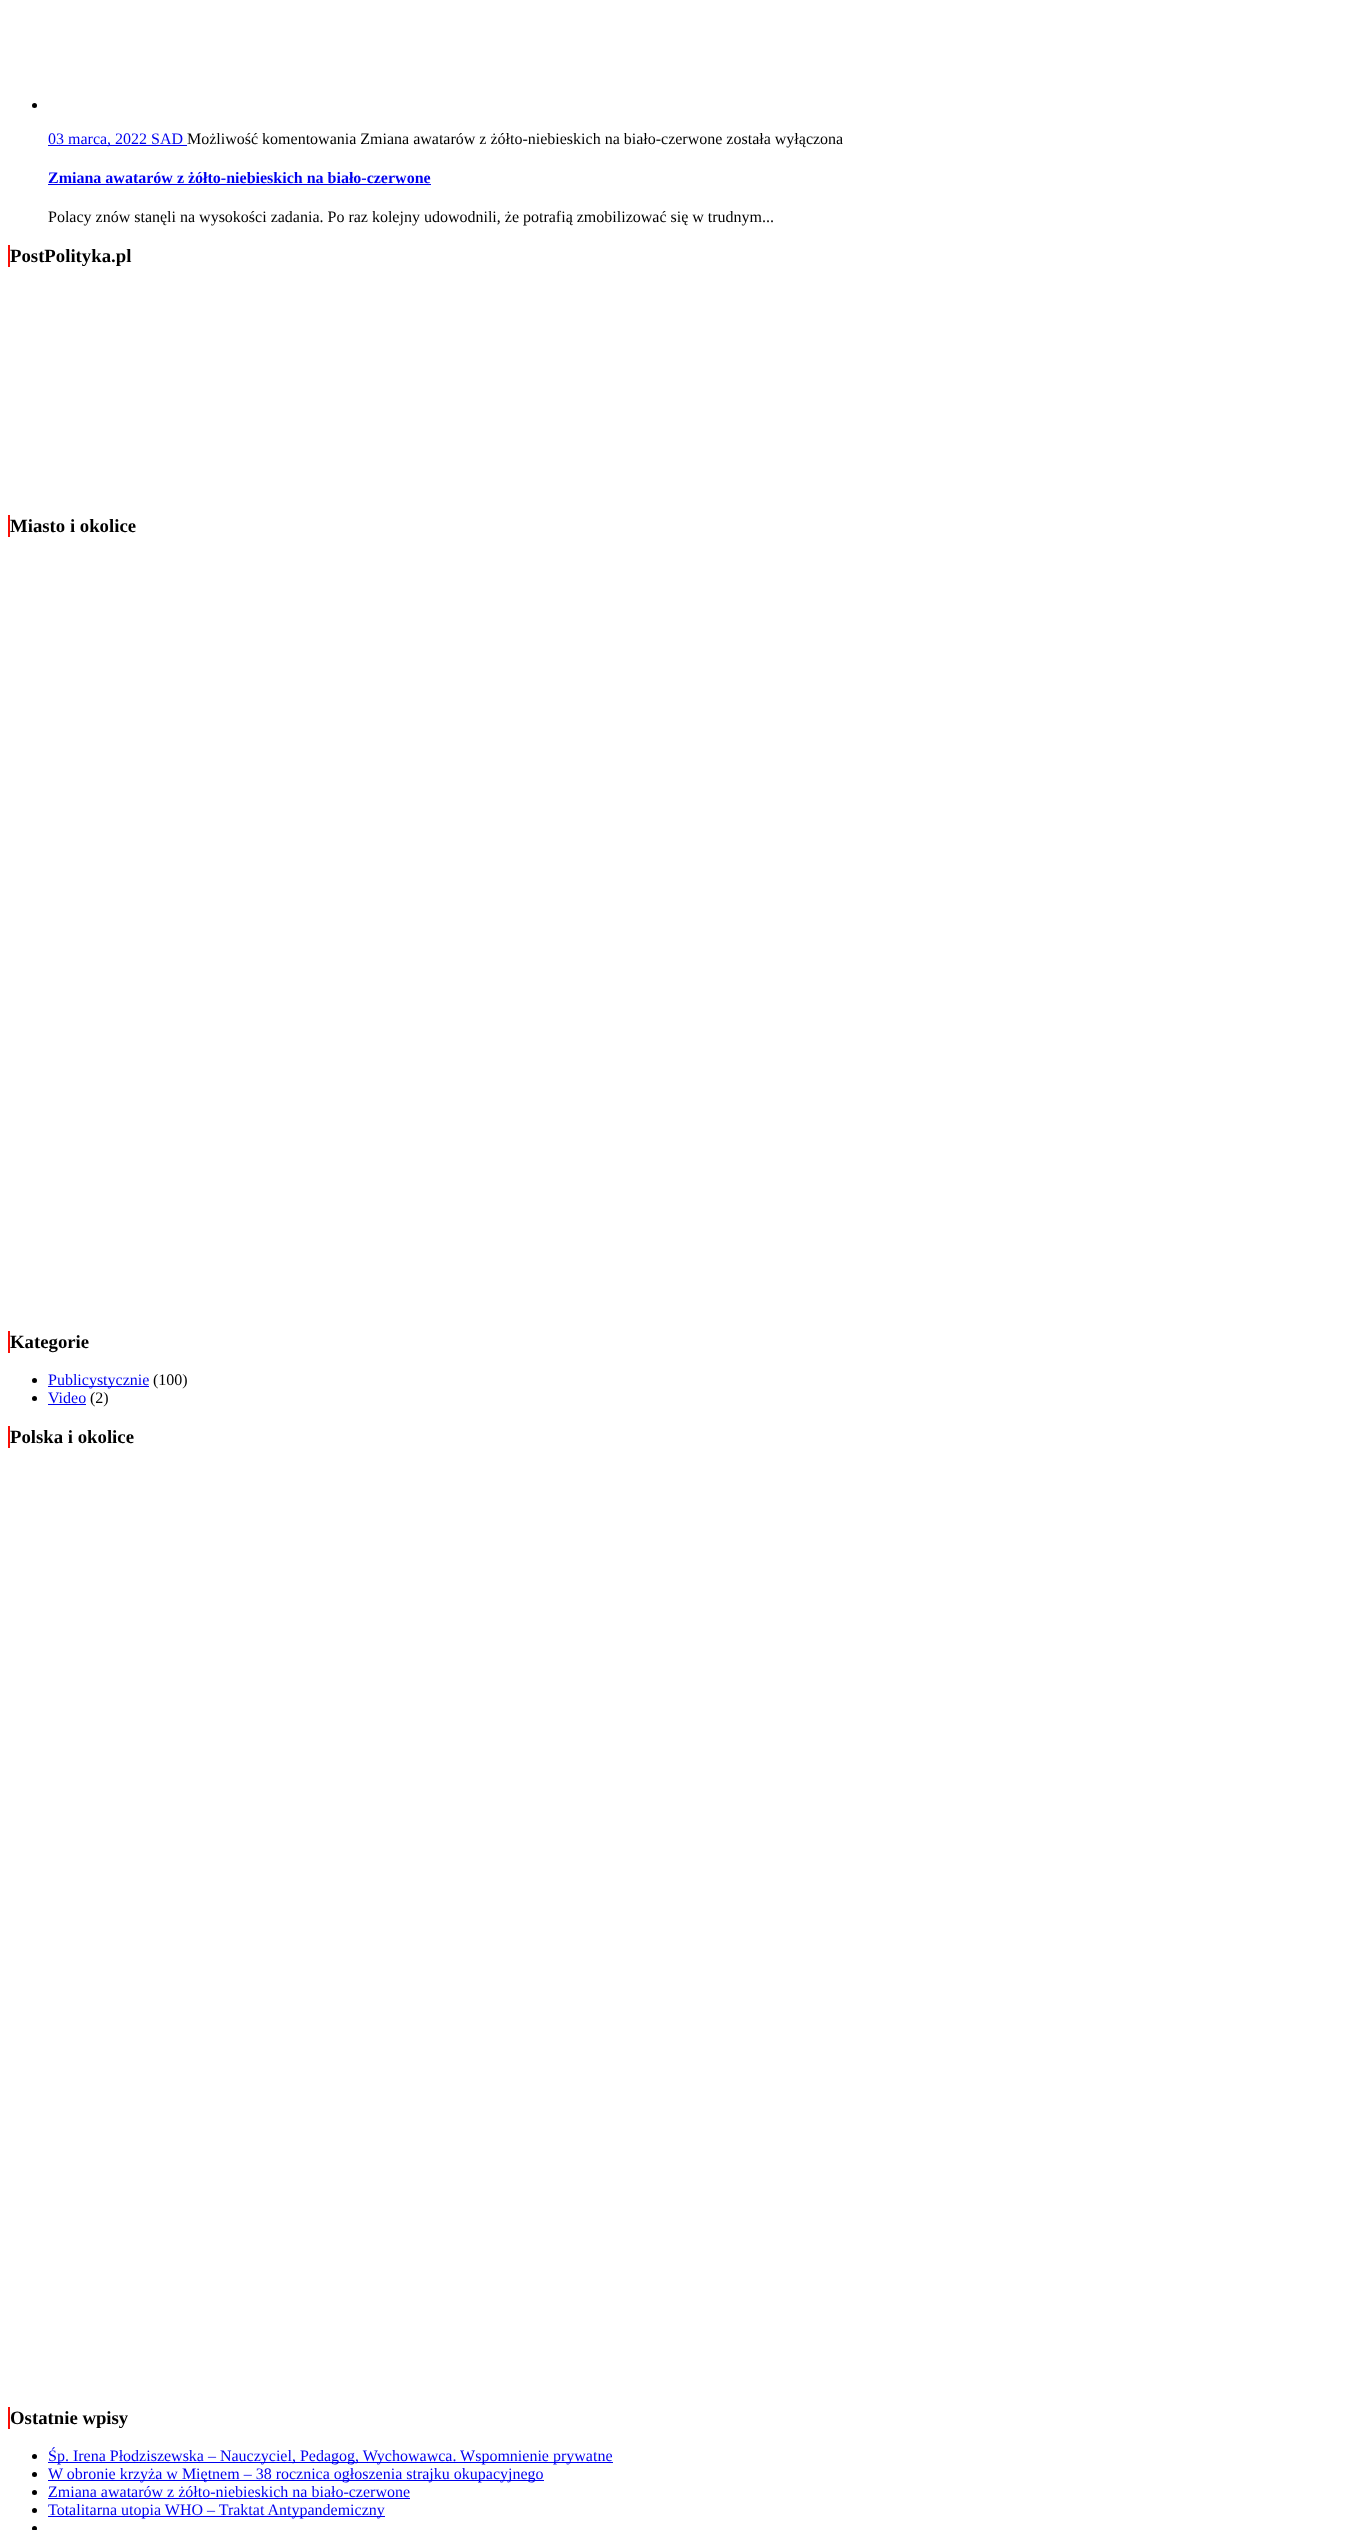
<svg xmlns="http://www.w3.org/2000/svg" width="1348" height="2530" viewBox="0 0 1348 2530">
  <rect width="100%" height="100%" fill="#ffffff"/>
  <circle cx="34.5" cy="105.5" r="2.5" fill="#000000"/>
  <rect x="48" y="145" width="139" height="1" fill="#0000ee"/>
  <text x="48" y="144" font-family="Liberation Serif" font-size="16" fill="#0000ee">03 marca, 2022 SAD</text>
  <text x="187" y="144" font-family="Liberation Serif" font-size="16" fill="#000000">Możliwość komentowania Zmiana awatarów z żółto-niebieskich na biało-czerwone została wyłączona</text>
  <text x="48" y="183" font-family="Liberation Serif" font-size="16" font-weight="bold" fill="#0000ee">Zmiana awatarów z żółto-niebieskich na biało-czerwone</text>
  <rect x="48" y="184" width="383" height="1" fill="#0000ee"/>
  <text x="48" y="222" font-family="Liberation Serif" font-size="16" fill="#000000">Polacy znów stanęli na wysokości zadania. Po raz kolejny udowodnili, że potrafią zmobilizować się w trudnym...</text>
  <rect x="8" y="245" width="2" height="22" fill="#f90f07"/>
  <text x="10" y="262" font-family="Liberation Serif" font-size="18.75" font-weight="bold" fill="#000000">PostPolityka.pl</text>
  <rect x="8" y="515" width="2" height="22" fill="#f90f07"/>
  <text x="10" y="532" font-family="Liberation Serif" font-size="18.75" font-weight="bold" fill="#000000">Miasto i okolice</text>
  <rect x="8" y="1331" width="2" height="22" fill="#f90f07"/>
  <text x="10" y="1348" font-family="Liberation Serif" font-size="18.75" font-weight="bold" fill="#000000">Kategorie</text>
  <circle cx="34.5" cy="1380.5" r="2.5" fill="#000000"/>
  <rect x="48" y="1386" width="101" height="1" fill="#0000ee"/>
  <text x="48" y="1385" font-family="Liberation Serif" font-size="16" fill="#0000ee">Publicystycznie</text>
  <text x="153" y="1385" font-family="Liberation Serif" font-size="16" fill="#000000">(100)</text>
  <circle cx="34.5" cy="1398.5" r="2.5" fill="#000000"/>
  <text x="48" y="1403" font-family="Liberation Serif" font-size="16" fill="#0000ee">Video</text>
  <rect x="48" y="1404" width="38" height="1" fill="#0000ee"/>
  <text x="90" y="1403" font-family="Liberation Serif" font-size="16" fill="#000000">(2)</text>
  <rect x="8" y="1426" width="2" height="22" fill="#f90f07"/>
  <text x="10" y="1443" font-family="Liberation Serif" font-size="18.75" font-weight="bold" fill="#000000">Polska i okolice</text>
  <rect x="8" y="2407" width="2" height="22" fill="#f90f07"/>
  <text x="10" y="2424" font-family="Liberation Serif" font-size="18.75" font-weight="bold" fill="#000000">Ostatnie wpisy</text>
  <circle cx="34.5" cy="2456.5" r="2.5" fill="#000000"/>
  <rect x="48" y="2462" width="565" height="1" fill="#0000ee"/>
  <text x="48" y="2461" font-family="Liberation Serif" font-size="16" fill="#0000ee">Śp. Irena Płodziszewska – Nauczyciel, Pedagog, Wychowawca. Wspomnienie prywatne</text>
  <circle cx="34.5" cy="2474.5" r="2.5" fill="#000000"/>
  <rect x="48" y="2480" width="496" height="1" fill="#0000ee"/>
  <text x="48" y="2479" font-family="Liberation Serif" font-size="16" fill="#0000ee">W obronie krzyża w Miętnem – 38 rocznica ogłoszenia strajku okupacyjnego</text>
  <circle cx="34.5" cy="2492.5" r="2.5" fill="#000000"/>
  <text x="48" y="2497" font-family="Liberation Serif" font-size="16" fill="#0000ee">Zmiana awatarów z żółto-niebieskich na biało-czerwone</text>
  <rect x="48" y="2498" width="362" height="1" fill="#0000ee"/>
  <circle cx="34.5" cy="2510.5" r="2.5" fill="#000000"/>
  <rect x="48" y="2516" width="337" height="1" fill="#0000ee"/>
  <text x="48" y="2515" font-family="Liberation Serif" font-size="16" fill="#0000ee">Totalitarna utopia WHO – Traktat Antypandemiczny</text>
  <circle cx="34.5" cy="2528.5" r="2.5" fill="#000000"/>
</svg>
